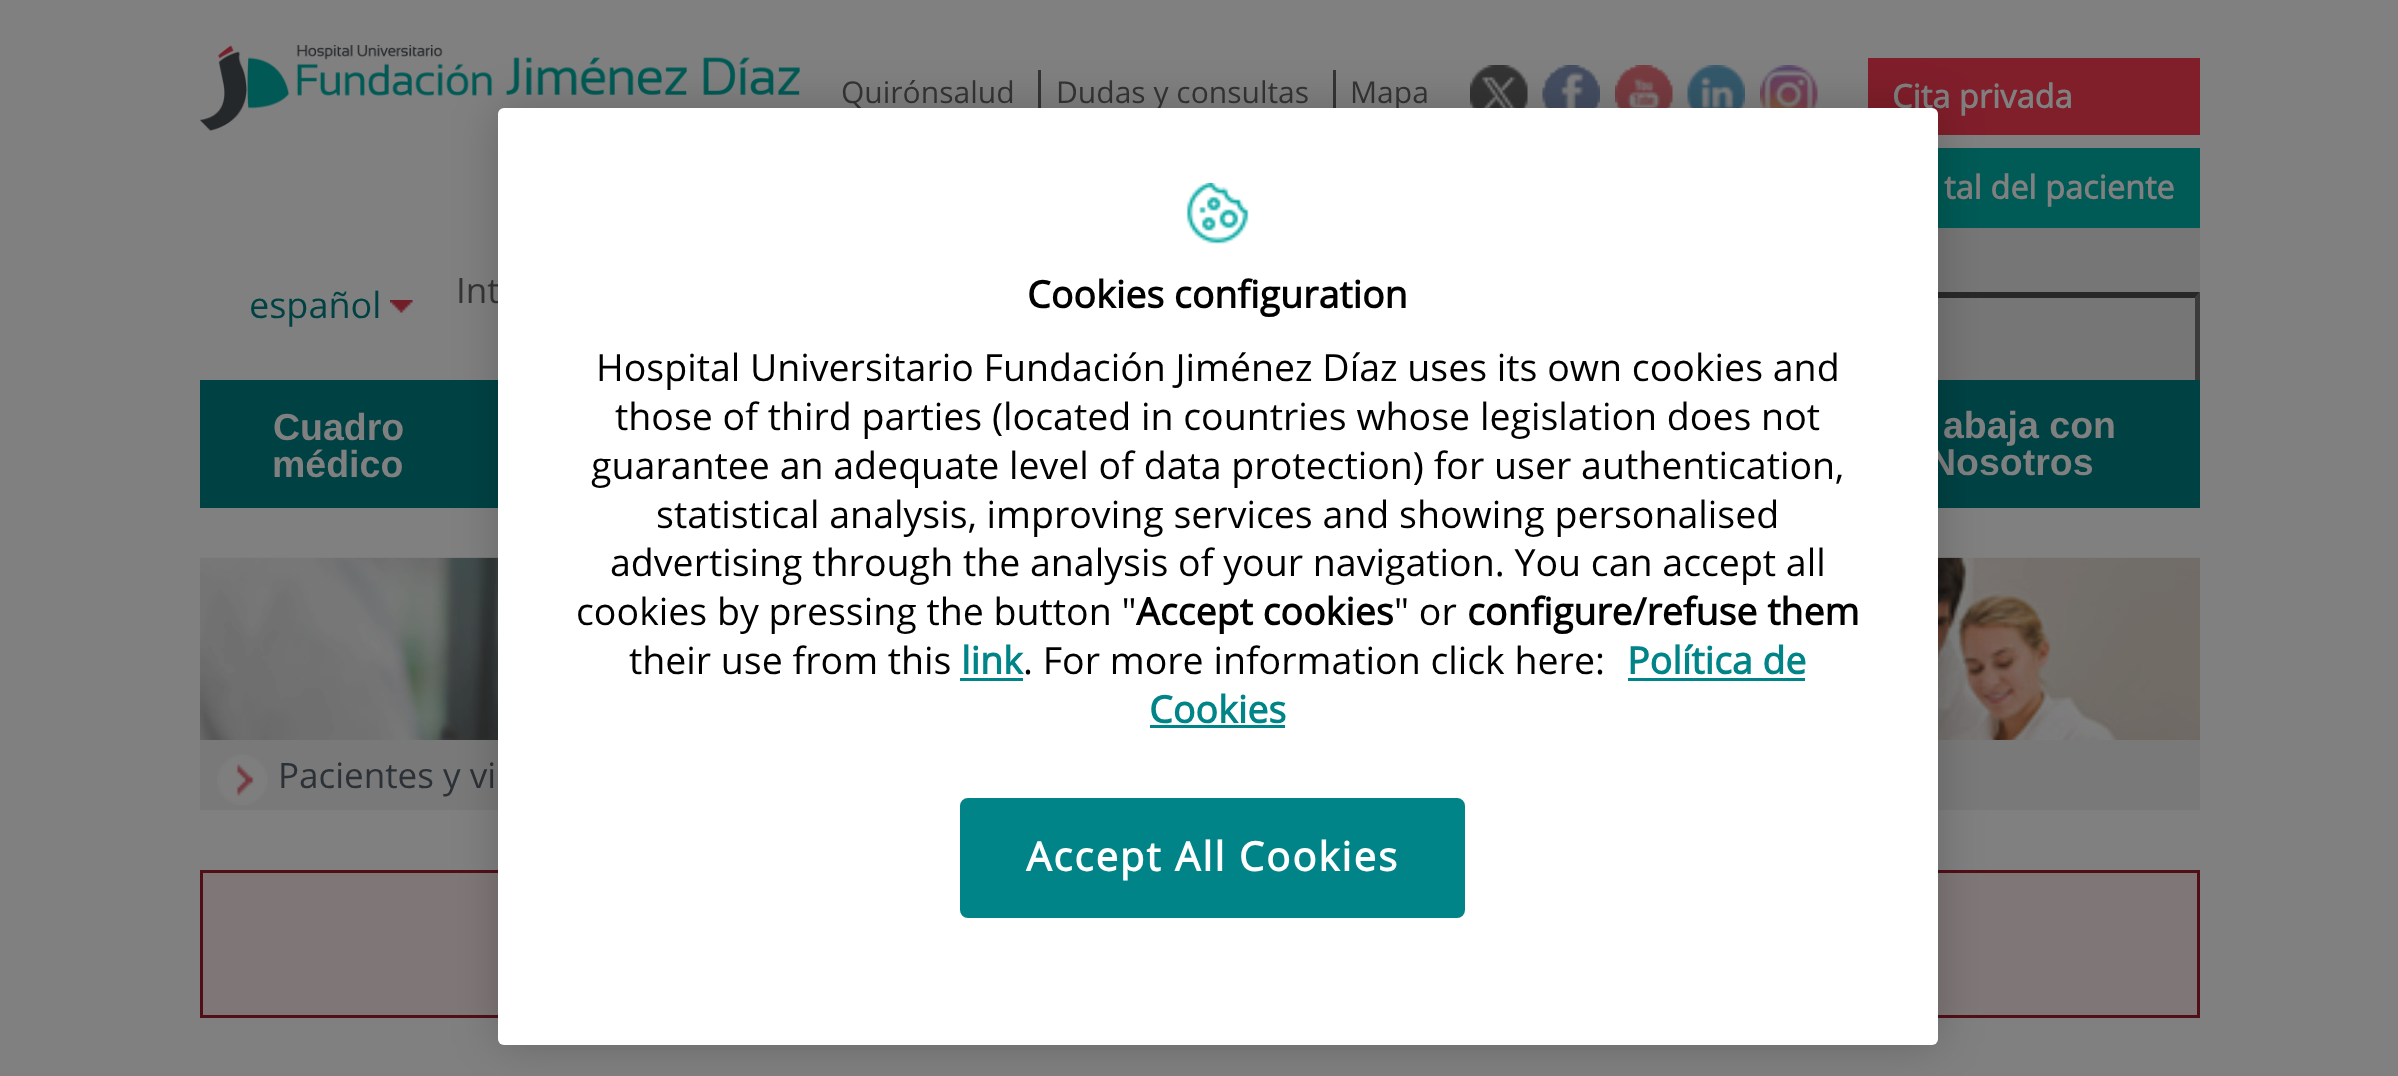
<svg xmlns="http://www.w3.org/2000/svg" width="2398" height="1076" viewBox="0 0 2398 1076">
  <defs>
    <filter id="blur1" x="-50%" y="-200%" width="200%" height="500%"><feGaussianBlur stdDeviation="22.5"/></filter>
  </defs>
  <rect width="100%" height="100%" fill="#808080"/>
  <image x="200" y="45" width="600" height="86" href="img1.png"/>
  <text x="841" y="103" font-family="Open Sans" font-size="30" fill="#343434">Quirónsalud</text>
  <text x="1056" y="103" font-family="Open Sans" font-size="30" fill="#343434">Dudas y consultas</text>
  <rect x="1038" y="70" width="3" height="43" fill="#343434"/>
  <text x="1350" y="103" font-family="Open Sans" font-size="30" fill="#343434">Mapa</text>
  <rect x="1333" y="70" width="3" height="43" fill="#343434"/>
  <image x="1470" y="65" width="58" height="43" href="img2.png"/>
  <image x="1542" y="65" width="58" height="43" href="img3.png"/>
  <image x="1615" y="65" width="58" height="43" href="img4.png"/>
  <image x="1687" y="65" width="58" height="43" href="img5.png"/>
  <image x="1760" y="65" width="58" height="43" href="img6.png"/>
  <rect x="1868" y="58" width="332" height="77" fill="#801e2a"/>
  <text x="1892" y="108" font-family="Open Sans" font-size="32.5" font-weight="bold" fill="#808080">Cita privada</text>
  <rect x="1938" y="148" width="262" height="80" fill="#005a55"/>
  <text x="1944" y="199" font-family="Open Sans" font-size="32.5" font-weight="bold" fill="#808080">tal del paciente</text>
  <image x="390" y="300" width="23" height="13" href="img7.png"/>
  <text x="249" y="318" font-family="Open Sans" font-size="36" fill="#004244">español</text>
  <text x="456" y="303" font-family="Open Sans" font-size="35" fill="#343434">Int</text>
  <rect x="1938" y="228" width="262" height="152" fill="#767676"/>
  <path d="M1650 292H2200L2195 298H1655Z" fill="#282828"/>
  <path d="M2200 292V392L2195 388V298Z" fill="#3b3b3b"/>
  <rect x="200" y="380" width="2000" height="128" fill="#004244"/>
  <text x="273" y="440" font-family="Liberation Sans" font-size="37.5" font-weight="bold" fill="#808080">Cuadro</text>
  <text x="272" y="477" font-family="Liberation Sans" font-size="37.5" font-weight="bold" fill="#808080">médico</text>
  <text x="1943" y="438" font-family="Liberation Sans" font-size="37.5" font-weight="bold" fill="#808080">abaja con</text>
  <text x="1929" y="475" font-family="Liberation Sans" font-size="37.5" font-weight="bold" fill="#808080">Nosotros</text>
  <image x="200" y="557" width="298" height="183" href="img8.png"/>
  <rect x="200" y="740" width="298" height="70" fill="#797979"/>
  <image x="217" y="755" width="51" height="50" href="img9.png"/>
  <text x="278" y="788" font-family="Open Sans" font-size="35" fill="#2b3136">Pacientes y vi</text>
  <image x="1938" y="557" width="262" height="183" href="img10.png"/>
  <rect x="1938" y="740" width="262" height="70" fill="#797979"/>
  <rect x="201.5" y="871.5" width="1997" height="145" fill="#7e7677" stroke="#500f17" stroke-width="3"/>
  <rect x="498" y="108" width="1440" height="937" rx="6" fill="#000000" fill-opacity="0.2" filter="url(#blur1)"/>
  <rect x="498" y="108" width="1440" height="937" rx="6" fill="#ffffff"/>
  <image x="1186" y="183" width="63" height="61" href="img11.png"/>
  <text x="1027" y="308" font-family="Open Sans" font-size="37.5" font-weight="bold" fill="#000000">Cookies configuration</text>
  <text x="596" y="381" font-family="Open Sans" font-size="37.5" fill="#000000">Hospital Universitario Fundación Jiménez Díaz uses its own cookies and</text>
  <text x="615" y="430" font-family="Open Sans" font-size="37.5" fill="#000000">those of third parties (located in countries whose legislation does not</text>
  <text x="591" y="479" font-family="Open Sans" font-size="37.5" fill="#000000">guarantee an adequate level of data protection) for user authentication,</text>
  <text x="656" y="528" font-family="Open Sans" font-size="37.5" fill="#000000">statistical analysis, improving services and showing personalised</text>
  <text x="610" y="576" font-family="Open Sans" font-size="37.5" fill="#000000">advertising through the analysis of your navigation. You can accept all</text>
  <text x="576" y="625" font-family="Open Sans" font-size="37.5" fill="#000000">cookies by pressing the button "</text>
  <text x="1136" y="625" font-family="Open Sans" font-size="37.5" font-weight="bold" fill="#000000">Accept cookies</text>
  <text x="1394" y="625" font-family="Open Sans" font-size="37.5" fill="#000000">" or</text>
  <text x="1467" y="625" font-family="Open Sans" font-size="37.5" font-weight="bold" fill="#000000">configure/refuse them</text>
  <text x="629" y="674" font-family="Open Sans" font-size="37.5" fill="#000000">their use from this</text>
  <text x="961" y="674" font-family="Open Sans" font-size="37.5" font-weight="bold" fill="#008488">link</text>
  <rect x="960" y="678" width="63" height="3" fill="#008488"/>
  <text x="1023" y="674" font-family="Open Sans" font-size="37.5" fill="#000000">. For more information click here:</text>
  <text x="1627" y="674" font-family="Open Sans" font-size="37.5" font-weight="bold" fill="#008488">Política de</text>
  <rect x="1628" y="678" width="177" height="3" fill="#008488"/>
  <text x="1149" y="723" font-family="Open Sans" font-size="37.5" font-weight="bold" fill="#008488">Cookies</text>
  <rect x="1150" y="725" width="135" height="3" fill="#008488"/>
  <rect x="961.5" y="799.5" width="502" height="117" rx="6.5" fill="#008488" stroke="#008488" stroke-width="3"/>
  <text x="1026" y="871" font-family="Open Sans" font-size="40" font-weight="bold" letter-spacing="2" fill="#ffffff">Accept All Cookies</text>
</svg>
